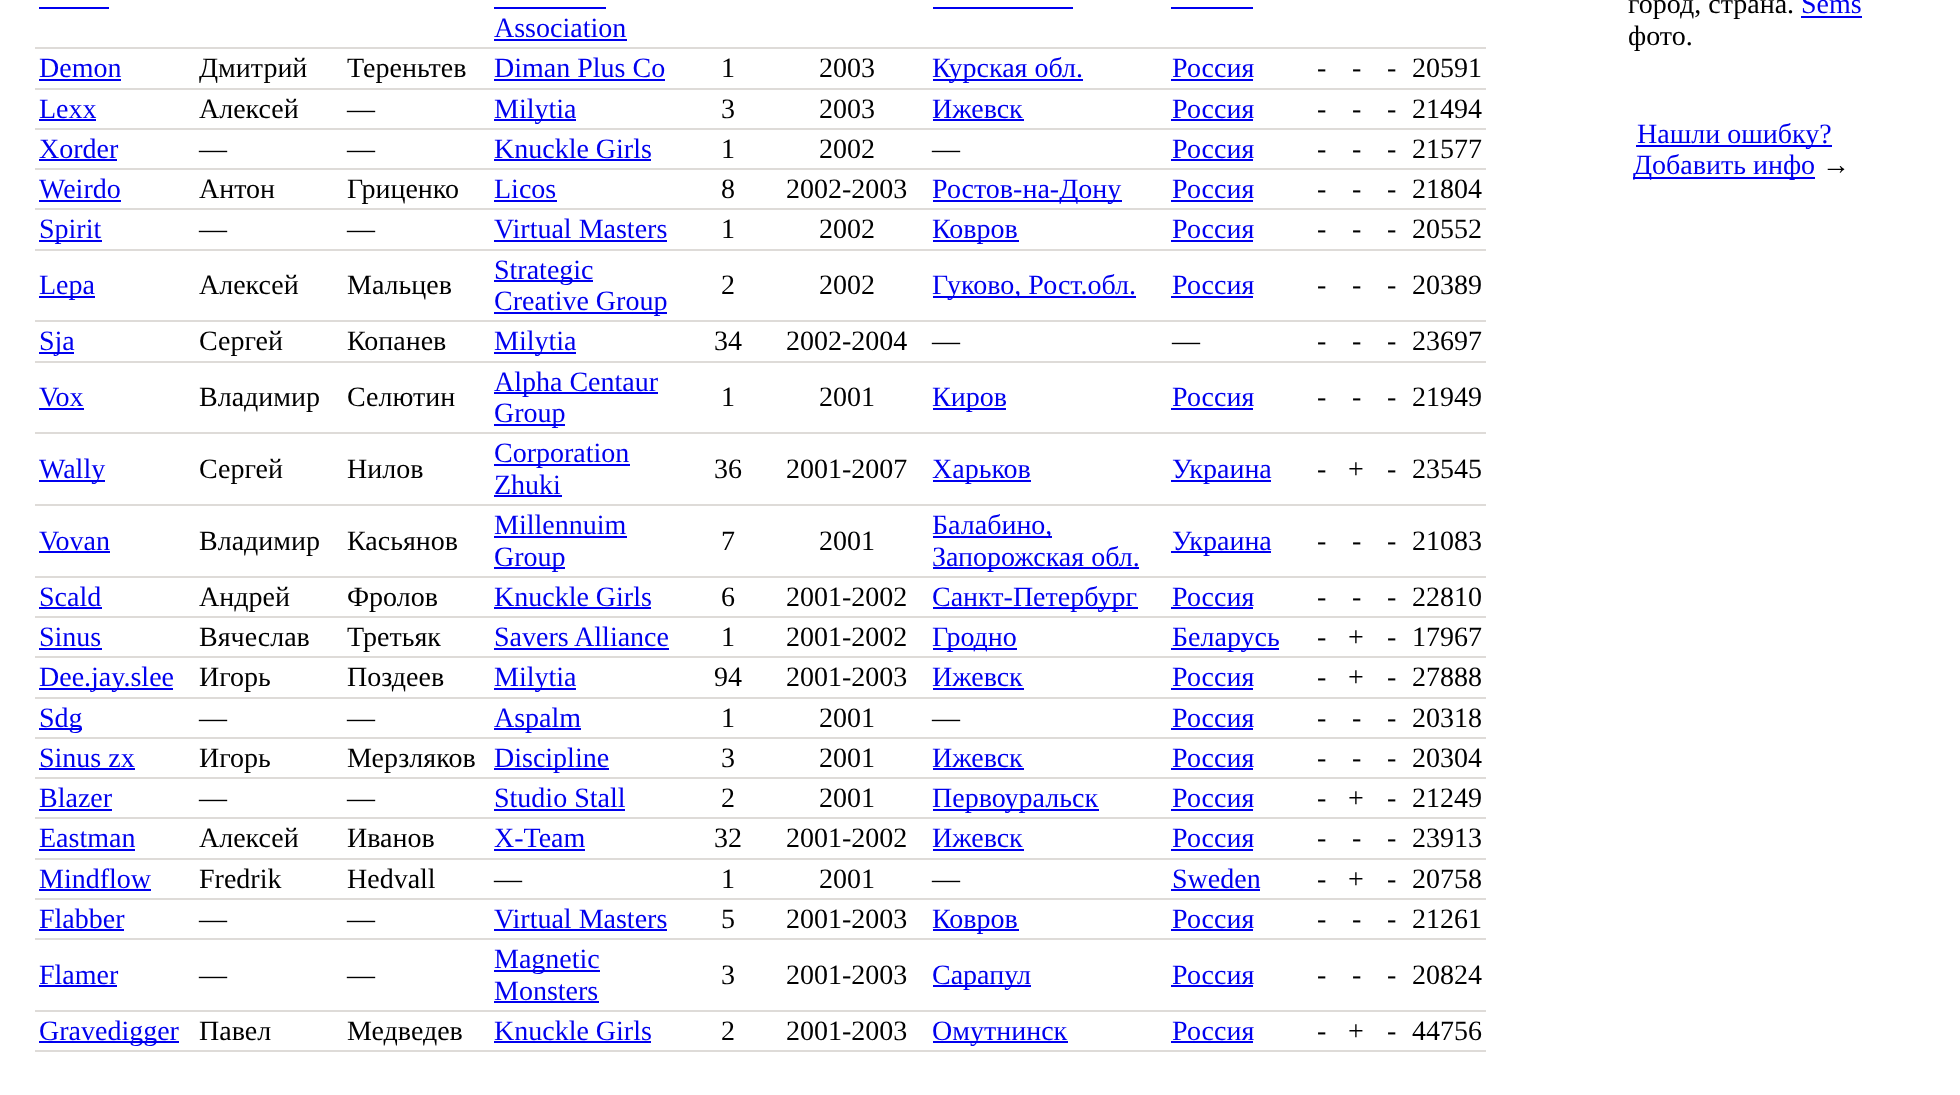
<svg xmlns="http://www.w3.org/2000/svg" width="1960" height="1095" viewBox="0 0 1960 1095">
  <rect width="100%" height="100%" fill="#ffffff"/>
  <rect x="35" y="47" width="1451" height="2" fill="#dedbd8"/>
  <rect x="39" y="7" width="70" height="2" fill="#0000ee"/>
  <rect x="933" y="7" width="140" height="2" fill="#0000ee"/>
  <rect x="1171" y="7" width="82" height="2" fill="#0000ee"/>
  <text x="494" y="37" font-family="Liberation Serif" font-size="28" fill="#0000ee">Association</text>
  <rect x="494" y="7" width="112" height="2" fill="#0000ee"/>
  <rect x="494" y="39" width="133" height="2" fill="#0000ee"/>
  <rect x="35" y="88" width="1451" height="2" fill="#dedbd8"/>
  <text x="39" y="77" font-family="Liberation Serif" font-size="28" fill="#0000ee">Demon</text>
  <rect x="39" y="79" width="82" height="2" fill="#0000ee"/>
  <text x="199" y="77" font-family="Liberation Serif" font-size="28" fill="#000000">Дмитрий</text>
  <text x="347" y="77" font-family="Liberation Serif" font-size="28" fill="#000000">Тереньтев</text>
  <text x="494" y="77" font-family="Liberation Serif" font-size="28" fill="#0000ee">Diman Plus Co</text>
  <rect x="494" y="79" width="171" height="2" fill="#0000ee"/>
  <text x="721" y="77" font-family="Liberation Serif" font-size="28" fill="#000000">1</text>
  <text x="819" y="77" font-family="Liberation Serif" font-size="28" fill="#000000">2003</text>
  <rect x="933" y="79" width="150" height="2" fill="#0000ee"/>
  <text x="932" y="77" font-family="Liberation Serif" font-size="28" fill="#0000ee">Курская обл.</text>
  <text x="1172" y="77" font-family="Liberation Serif" font-size="28" fill="#0000ee">Россия</text>
  <rect x="1171" y="79" width="82" height="2" fill="#0000ee"/>
  <text x="1317" y="77" font-family="Liberation Serif" font-size="28" fill="#000000">-</text>
  <text x="1352" y="77" font-family="Liberation Serif" font-size="28" fill="#000000">-</text>
  <text x="1387" y="77" font-family="Liberation Serif" font-size="28" fill="#000000">-</text>
  <text x="1412" y="77" font-family="Liberation Serif" font-size="28" fill="#000000">20591</text>
  <rect x="35" y="128" width="1451" height="2" fill="#dedbd8"/>
  <text x="39" y="118" font-family="Liberation Serif" font-size="28" fill="#0000ee">Lexx</text>
  <rect x="39" y="119" width="57" height="2" fill="#0000ee"/>
  <text x="199" y="118" font-family="Liberation Serif" font-size="28" fill="#000000">Алексей</text>
  <text x="347" y="118" font-family="Liberation Serif" font-size="28" fill="#000000">—</text>
  <rect x="494" y="119" width="82" height="2" fill="#0000ee"/>
  <text x="494" y="118" font-family="Liberation Serif" font-size="28" fill="#0000ee">Milytia</text>
  <text x="721" y="118" font-family="Liberation Serif" font-size="28" fill="#000000">3</text>
  <text x="819" y="118" font-family="Liberation Serif" font-size="28" fill="#000000">2003</text>
  <text x="932" y="118" font-family="Liberation Serif" font-size="28" fill="#0000ee">Ижевск</text>
  <rect x="933" y="119" width="91" height="2" fill="#0000ee"/>
  <text x="1172" y="118" font-family="Liberation Serif" font-size="28" fill="#0000ee">Россия</text>
  <rect x="1171" y="119" width="82" height="2" fill="#0000ee"/>
  <text x="1317" y="118" font-family="Liberation Serif" font-size="28" fill="#000000">-</text>
  <text x="1352" y="118" font-family="Liberation Serif" font-size="28" fill="#000000">-</text>
  <text x="1387" y="118" font-family="Liberation Serif" font-size="28" fill="#000000">-</text>
  <text x="1412" y="118" font-family="Liberation Serif" font-size="28" fill="#000000">21494</text>
  <rect x="35" y="168" width="1451" height="2" fill="#dedbd8"/>
  <text x="39" y="158" font-family="Liberation Serif" font-size="28" fill="#0000ee">Xorder</text>
  <rect x="39" y="159" width="78" height="2" fill="#0000ee"/>
  <text x="199" y="158" font-family="Liberation Serif" font-size="28" fill="#000000">—</text>
  <text x="347" y="158" font-family="Liberation Serif" font-size="28" fill="#000000">—</text>
  <text x="494" y="158" font-family="Liberation Serif" font-size="28" fill="#0000ee">Knuckle Girls</text>
  <rect x="494" y="159" width="157" height="2" fill="#0000ee"/>
  <text x="721" y="158" font-family="Liberation Serif" font-size="28" fill="#000000">1</text>
  <text x="819" y="158" font-family="Liberation Serif" font-size="28" fill="#000000">2002</text>
  <text x="932" y="158" font-family="Liberation Serif" font-size="28" fill="#000000">—</text>
  <text x="1172" y="158" font-family="Liberation Serif" font-size="28" fill="#0000ee">Россия</text>
  <rect x="1171" y="159" width="82" height="2" fill="#0000ee"/>
  <text x="1317" y="158" font-family="Liberation Serif" font-size="28" fill="#000000">-</text>
  <text x="1352" y="158" font-family="Liberation Serif" font-size="28" fill="#000000">-</text>
  <text x="1387" y="158" font-family="Liberation Serif" font-size="28" fill="#000000">-</text>
  <text x="1412" y="158" font-family="Liberation Serif" font-size="28" fill="#000000">21577</text>
  <rect x="35" y="208" width="1451" height="2" fill="#dedbd8"/>
  <text x="39" y="198" font-family="Liberation Serif" font-size="28" fill="#0000ee">Weirdo</text>
  <rect x="39" y="200" width="82" height="2" fill="#0000ee"/>
  <text x="199" y="198" font-family="Liberation Serif" font-size="28" fill="#000000">Антон</text>
  <text x="347" y="198" font-family="Liberation Serif" font-size="28" fill="#000000">Гриценко</text>
  <text x="494" y="198" font-family="Liberation Serif" font-size="28" fill="#0000ee">Licos</text>
  <rect x="494" y="200" width="63" height="2" fill="#0000ee"/>
  <text x="721" y="198" font-family="Liberation Serif" font-size="28" fill="#000000">8</text>
  <text x="786" y="198" font-family="Liberation Serif" font-size="28" fill="#000000">2002-2003</text>
  <rect x="933" y="200" width="189" height="2" fill="#0000ee"/>
  <text x="932" y="198" font-family="Liberation Serif" font-size="28" fill="#0000ee">Ростов-на-Дону</text>
  <text x="1172" y="198" font-family="Liberation Serif" font-size="28" fill="#0000ee">Россия</text>
  <rect x="1171" y="200" width="82" height="2" fill="#0000ee"/>
  <text x="1317" y="198" font-family="Liberation Serif" font-size="28" fill="#000000">-</text>
  <text x="1352" y="198" font-family="Liberation Serif" font-size="28" fill="#000000">-</text>
  <text x="1387" y="198" font-family="Liberation Serif" font-size="28" fill="#000000">-</text>
  <text x="1412" y="198" font-family="Liberation Serif" font-size="28" fill="#000000">21804</text>
  <rect x="35" y="249" width="1451" height="2" fill="#dedbd8"/>
  <rect x="39" y="240" width="63" height="2" fill="#0000ee"/>
  <text x="39" y="238" font-family="Liberation Serif" font-size="28" fill="#0000ee">Spirit</text>
  <text x="199" y="238" font-family="Liberation Serif" font-size="28" fill="#000000">—</text>
  <text x="347" y="238" font-family="Liberation Serif" font-size="28" fill="#000000">—</text>
  <text x="494" y="238" font-family="Liberation Serif" font-size="28" fill="#0000ee">Virtual Masters</text>
  <rect x="494" y="240" width="173" height="2" fill="#0000ee"/>
  <text x="721" y="238" font-family="Liberation Serif" font-size="28" fill="#000000">1</text>
  <text x="819" y="238" font-family="Liberation Serif" font-size="28" fill="#000000">2002</text>
  <rect x="933" y="240" width="86" height="2" fill="#0000ee"/>
  <text x="932" y="238" font-family="Liberation Serif" font-size="28" fill="#0000ee">Ковров</text>
  <text x="1172" y="238" font-family="Liberation Serif" font-size="28" fill="#0000ee">Россия</text>
  <rect x="1171" y="240" width="82" height="2" fill="#0000ee"/>
  <text x="1317" y="238" font-family="Liberation Serif" font-size="28" fill="#000000">-</text>
  <text x="1352" y="238" font-family="Liberation Serif" font-size="28" fill="#000000">-</text>
  <text x="1387" y="238" font-family="Liberation Serif" font-size="28" fill="#000000">-</text>
  <text x="1412" y="238" font-family="Liberation Serif" font-size="28" fill="#000000">20552</text>
  <rect x="35" y="320" width="1451" height="2" fill="#dedbd8"/>
  <rect x="39" y="296" width="56" height="2" fill="#0000ee"/>
  <text x="39" y="294" font-family="Liberation Serif" font-size="28" fill="#0000ee">Lepa</text>
  <text x="199" y="294" font-family="Liberation Serif" font-size="28" fill="#000000">Алексей</text>
  <text x="347" y="294" font-family="Liberation Serif" font-size="28" fill="#000000">Мальцев</text>
  <rect x="494" y="280" width="99" height="2" fill="#0000ee"/>
  <text x="494" y="279" font-family="Liberation Serif" font-size="28" fill="#0000ee">Strategic</text>
  <rect x="494" y="312" width="173" height="2" fill="#0000ee"/>
  <text x="494" y="310" font-family="Liberation Serif" font-size="28" fill="#0000ee">Creative Group</text>
  <text x="721" y="294" font-family="Liberation Serif" font-size="28" fill="#000000">2</text>
  <text x="819" y="294" font-family="Liberation Serif" font-size="28" fill="#000000">2002</text>
  <rect x="933" y="296" width="203" height="2" fill="#0000ee"/>
  <text x="932" y="294" font-family="Liberation Serif" font-size="28" fill="#0000ee">Гуково, Рост.обл.</text>
  <text x="1172" y="294" font-family="Liberation Serif" font-size="28" fill="#0000ee">Россия</text>
  <rect x="1171" y="296" width="82" height="2" fill="#0000ee"/>
  <text x="1317" y="294" font-family="Liberation Serif" font-size="28" fill="#000000">-</text>
  <text x="1352" y="294" font-family="Liberation Serif" font-size="28" fill="#000000">-</text>
  <text x="1387" y="294" font-family="Liberation Serif" font-size="28" fill="#000000">-</text>
  <text x="1412" y="294" font-family="Liberation Serif" font-size="28" fill="#000000">20389</text>
  <rect x="35" y="361" width="1451" height="2" fill="#dedbd8"/>
  <rect x="39" y="352" width="35" height="2" fill="#0000ee"/>
  <text x="39" y="350" font-family="Liberation Serif" font-size="28" fill="#0000ee">Sja</text>
  <text x="199" y="350" font-family="Liberation Serif" font-size="28" fill="#000000">Сергей</text>
  <text x="347" y="350" font-family="Liberation Serif" font-size="28" fill="#000000">Копанев</text>
  <rect x="494" y="352" width="82" height="2" fill="#0000ee"/>
  <text x="494" y="350" font-family="Liberation Serif" font-size="28" fill="#0000ee">Milytia</text>
  <text x="714" y="350" font-family="Liberation Serif" font-size="28" fill="#000000">34</text>
  <text x="786" y="350" font-family="Liberation Serif" font-size="28" fill="#000000">2002-2004</text>
  <text x="932" y="350" font-family="Liberation Serif" font-size="28" fill="#000000">—</text>
  <text x="1172" y="350" font-family="Liberation Serif" font-size="28" fill="#000000">—</text>
  <text x="1317" y="350" font-family="Liberation Serif" font-size="28" fill="#000000">-</text>
  <text x="1352" y="350" font-family="Liberation Serif" font-size="28" fill="#000000">-</text>
  <text x="1387" y="350" font-family="Liberation Serif" font-size="28" fill="#000000">-</text>
  <text x="1412" y="350" font-family="Liberation Serif" font-size="28" fill="#000000">23697</text>
  <rect x="35" y="432" width="1451" height="2" fill="#dedbd8"/>
  <text x="39" y="406" font-family="Liberation Serif" font-size="28" fill="#0000ee">Vox</text>
  <rect x="39" y="408" width="45" height="2" fill="#0000ee"/>
  <text x="199" y="406" font-family="Liberation Serif" font-size="28" fill="#000000">Владимир</text>
  <text x="347" y="406" font-family="Liberation Serif" font-size="28" fill="#000000">Селютин</text>
  <rect x="494" y="392" width="164" height="2" fill="#0000ee"/>
  <text x="494" y="391" font-family="Liberation Serif" font-size="28" fill="#0000ee">Alpha Centaur</text>
  <rect x="494" y="424" width="71" height="2" fill="#0000ee"/>
  <text x="494" y="422" font-family="Liberation Serif" font-size="28" fill="#0000ee">Group</text>
  <text x="721" y="406" font-family="Liberation Serif" font-size="28" fill="#000000">1</text>
  <text x="819" y="406" font-family="Liberation Serif" font-size="28" fill="#000000">2001</text>
  <rect x="933" y="408" width="73" height="2" fill="#0000ee"/>
  <text x="932" y="406" font-family="Liberation Serif" font-size="28" fill="#0000ee">Киров</text>
  <text x="1172" y="406" font-family="Liberation Serif" font-size="28" fill="#0000ee">Россия</text>
  <rect x="1171" y="408" width="82" height="2" fill="#0000ee"/>
  <text x="1317" y="406" font-family="Liberation Serif" font-size="28" fill="#000000">-</text>
  <text x="1352" y="406" font-family="Liberation Serif" font-size="28" fill="#000000">-</text>
  <text x="1387" y="406" font-family="Liberation Serif" font-size="28" fill="#000000">-</text>
  <text x="1412" y="406" font-family="Liberation Serif" font-size="28" fill="#000000">21949</text>
  <rect x="35" y="504" width="1451" height="2" fill="#dedbd8"/>
  <rect x="39" y="480" width="66" height="2" fill="#0000ee"/>
  <text x="39" y="478" font-family="Liberation Serif" font-size="28" fill="#0000ee">Wally</text>
  <text x="199" y="478" font-family="Liberation Serif" font-size="28" fill="#000000">Сергей</text>
  <text x="347" y="478" font-family="Liberation Serif" font-size="28" fill="#000000">Нилов</text>
  <rect x="494" y="464" width="136" height="2" fill="#0000ee"/>
  <text x="494" y="462" font-family="Liberation Serif" font-size="28" fill="#0000ee">Corporation</text>
  <text x="494" y="494" font-family="Liberation Serif" font-size="28" fill="#0000ee">Zhuki</text>
  <rect x="494" y="495" width="68" height="2" fill="#0000ee"/>
  <text x="714" y="478" font-family="Liberation Serif" font-size="28" fill="#000000">36</text>
  <text x="786" y="478" font-family="Liberation Serif" font-size="28" fill="#000000">2001-2007</text>
  <rect x="933" y="480" width="98" height="2" fill="#0000ee"/>
  <text x="932" y="478" font-family="Liberation Serif" font-size="28" fill="#0000ee">Харьков</text>
  <rect x="1171" y="480" width="100" height="2" fill="#0000ee"/>
  <text x="1172" y="478" font-family="Liberation Serif" font-size="28" fill="#0000ee">Украина</text>
  <text x="1317" y="478" font-family="Liberation Serif" font-size="28" fill="#000000">-</text>
  <text x="1348" y="478" font-family="Liberation Serif" font-size="28" fill="#000000">+</text>
  <text x="1387" y="478" font-family="Liberation Serif" font-size="28" fill="#000000">-</text>
  <text x="1412" y="478" font-family="Liberation Serif" font-size="28" fill="#000000">23545</text>
  <rect x="35" y="576" width="1451" height="2" fill="#dedbd8"/>
  <text x="39" y="550" font-family="Liberation Serif" font-size="28" fill="#0000ee">Vovan</text>
  <rect x="39" y="551" width="71" height="2" fill="#0000ee"/>
  <text x="199" y="550" font-family="Liberation Serif" font-size="28" fill="#000000">Владимир</text>
  <text x="347" y="550" font-family="Liberation Serif" font-size="28" fill="#000000">Касьянов</text>
  <text x="494" y="534" font-family="Liberation Serif" font-size="28" fill="#0000ee">Millennuim</text>
  <rect x="494" y="536" width="133" height="2" fill="#0000ee"/>
  <rect x="494" y="567" width="71" height="2" fill="#0000ee"/>
  <text x="494" y="566" font-family="Liberation Serif" font-size="28" fill="#0000ee">Group</text>
  <text x="721" y="550" font-family="Liberation Serif" font-size="28" fill="#000000">7</text>
  <text x="819" y="550" font-family="Liberation Serif" font-size="28" fill="#000000">2001</text>
  <rect x="933" y="536" width="119" height="2" fill="#0000ee"/>
  <text x="932" y="534" font-family="Liberation Serif" font-size="28" fill="#0000ee">Балабино,</text>
  <rect x="933" y="567" width="206" height="2" fill="#0000ee"/>
  <text x="932" y="566" font-family="Liberation Serif" font-size="28" fill="#0000ee">Запорожская обл.</text>
  <rect x="1171" y="551" width="100" height="2" fill="#0000ee"/>
  <text x="1172" y="550" font-family="Liberation Serif" font-size="28" fill="#0000ee">Украина</text>
  <text x="1317" y="550" font-family="Liberation Serif" font-size="28" fill="#000000">-</text>
  <text x="1352" y="550" font-family="Liberation Serif" font-size="28" fill="#000000">-</text>
  <text x="1387" y="550" font-family="Liberation Serif" font-size="28" fill="#000000">-</text>
  <text x="1412" y="550" font-family="Liberation Serif" font-size="28" fill="#000000">21083</text>
  <rect x="35" y="616" width="1451" height="2" fill="#dedbd8"/>
  <text x="39" y="606" font-family="Liberation Serif" font-size="28" fill="#0000ee">Scald</text>
  <rect x="39" y="607" width="63" height="2" fill="#0000ee"/>
  <text x="199" y="606" font-family="Liberation Serif" font-size="28" fill="#000000">Андрей</text>
  <text x="347" y="606" font-family="Liberation Serif" font-size="28" fill="#000000">Фролов</text>
  <text x="494" y="606" font-family="Liberation Serif" font-size="28" fill="#0000ee">Knuckle Girls</text>
  <rect x="494" y="607" width="157" height="2" fill="#0000ee"/>
  <text x="721" y="606" font-family="Liberation Serif" font-size="28" fill="#000000">6</text>
  <text x="786" y="606" font-family="Liberation Serif" font-size="28" fill="#000000">2001-2002</text>
  <rect x="933" y="607" width="205" height="2" fill="#0000ee"/>
  <text x="932" y="606" font-family="Liberation Serif" font-size="28" fill="#0000ee">Санкт-Петербург</text>
  <text x="1172" y="606" font-family="Liberation Serif" font-size="28" fill="#0000ee">Россия</text>
  <rect x="1171" y="607" width="82" height="2" fill="#0000ee"/>
  <text x="1317" y="606" font-family="Liberation Serif" font-size="28" fill="#000000">-</text>
  <text x="1352" y="606" font-family="Liberation Serif" font-size="28" fill="#000000">-</text>
  <text x="1387" y="606" font-family="Liberation Serif" font-size="28" fill="#000000">-</text>
  <text x="1412" y="606" font-family="Liberation Serif" font-size="28" fill="#000000">22810</text>
  <rect x="35" y="656" width="1451" height="2" fill="#dedbd8"/>
  <text x="39" y="646" font-family="Liberation Serif" font-size="28" fill="#0000ee">Sinus</text>
  <rect x="39" y="648" width="63" height="2" fill="#0000ee"/>
  <text x="199" y="646" font-family="Liberation Serif" font-size="28" fill="#000000">Вячеслав</text>
  <text x="347" y="646" font-family="Liberation Serif" font-size="28" fill="#000000">Третьяк</text>
  <text x="494" y="646" font-family="Liberation Serif" font-size="28" fill="#0000ee">Savers Alliance</text>
  <rect x="494" y="648" width="175" height="2" fill="#0000ee"/>
  <text x="721" y="646" font-family="Liberation Serif" font-size="28" fill="#000000">1</text>
  <text x="786" y="646" font-family="Liberation Serif" font-size="28" fill="#000000">2001-2002</text>
  <rect x="933" y="648" width="84" height="2" fill="#0000ee"/>
  <text x="932" y="646" font-family="Liberation Serif" font-size="28" fill="#0000ee">Гродно</text>
  <rect x="1171" y="648" width="108" height="2" fill="#0000ee"/>
  <text x="1172" y="646" font-family="Liberation Serif" font-size="28" fill="#0000ee">Беларусь</text>
  <text x="1317" y="646" font-family="Liberation Serif" font-size="28" fill="#000000">-</text>
  <text x="1348" y="646" font-family="Liberation Serif" font-size="28" fill="#000000">+</text>
  <text x="1387" y="646" font-family="Liberation Serif" font-size="28" fill="#000000">-</text>
  <text x="1412" y="646" font-family="Liberation Serif" font-size="28" fill="#000000">17967</text>
  <rect x="35" y="697" width="1451" height="2" fill="#dedbd8"/>
  <rect x="39" y="688" width="134" height="2" fill="#0000ee"/>
  <text x="39" y="686" font-family="Liberation Serif" font-size="28" fill="#0000ee">Dee.jay.slee</text>
  <text x="199" y="686" font-family="Liberation Serif" font-size="28" fill="#000000">Игорь</text>
  <text x="347" y="686" font-family="Liberation Serif" font-size="28" fill="#000000">Поздеев</text>
  <rect x="494" y="688" width="82" height="2" fill="#0000ee"/>
  <text x="494" y="686" font-family="Liberation Serif" font-size="28" fill="#0000ee">Milytia</text>
  <text x="714" y="686" font-family="Liberation Serif" font-size="28" fill="#000000">94</text>
  <text x="786" y="686" font-family="Liberation Serif" font-size="28" fill="#000000">2001-2003</text>
  <text x="932" y="686" font-family="Liberation Serif" font-size="28" fill="#0000ee">Ижевск</text>
  <rect x="933" y="688" width="91" height="2" fill="#0000ee"/>
  <text x="1172" y="686" font-family="Liberation Serif" font-size="28" fill="#0000ee">Россия</text>
  <rect x="1171" y="688" width="82" height="2" fill="#0000ee"/>
  <text x="1317" y="686" font-family="Liberation Serif" font-size="28" fill="#000000">-</text>
  <text x="1348" y="686" font-family="Liberation Serif" font-size="28" fill="#000000">+</text>
  <text x="1387" y="686" font-family="Liberation Serif" font-size="28" fill="#000000">-</text>
  <text x="1412" y="686" font-family="Liberation Serif" font-size="28" fill="#000000">27888</text>
  <rect x="35" y="737" width="1451" height="2" fill="#dedbd8"/>
  <rect x="39" y="728" width="43" height="2" fill="#0000ee"/>
  <text x="39" y="727" font-family="Liberation Serif" font-size="28" fill="#0000ee">Sdg</text>
  <text x="199" y="727" font-family="Liberation Serif" font-size="28" fill="#000000">—</text>
  <text x="347" y="727" font-family="Liberation Serif" font-size="28" fill="#000000">—</text>
  <rect x="494" y="728" width="87" height="2" fill="#0000ee"/>
  <text x="494" y="727" font-family="Liberation Serif" font-size="28" fill="#0000ee">Aspalm</text>
  <text x="721" y="727" font-family="Liberation Serif" font-size="28" fill="#000000">1</text>
  <text x="819" y="727" font-family="Liberation Serif" font-size="28" fill="#000000">2001</text>
  <text x="932" y="727" font-family="Liberation Serif" font-size="28" fill="#000000">—</text>
  <text x="1172" y="727" font-family="Liberation Serif" font-size="28" fill="#0000ee">Россия</text>
  <rect x="1171" y="728" width="82" height="2" fill="#0000ee"/>
  <text x="1317" y="727" font-family="Liberation Serif" font-size="28" fill="#000000">-</text>
  <text x="1352" y="727" font-family="Liberation Serif" font-size="28" fill="#000000">-</text>
  <text x="1387" y="727" font-family="Liberation Serif" font-size="28" fill="#000000">-</text>
  <text x="1412" y="727" font-family="Liberation Serif" font-size="28" fill="#000000">20318</text>
  <rect x="35" y="777" width="1451" height="2" fill="#dedbd8"/>
  <text x="39" y="767" font-family="Liberation Serif" font-size="28" fill="#0000ee">Sinus zx</text>
  <rect x="39" y="768" width="96" height="2" fill="#0000ee"/>
  <text x="199" y="767" font-family="Liberation Serif" font-size="28" fill="#000000">Игорь</text>
  <text x="347" y="767" font-family="Liberation Serif" font-size="28" fill="#000000">Мерзляков</text>
  <rect x="494" y="768" width="115" height="2" fill="#0000ee"/>
  <text x="494" y="767" font-family="Liberation Serif" font-size="28" fill="#0000ee">Discipline</text>
  <text x="721" y="767" font-family="Liberation Serif" font-size="28" fill="#000000">3</text>
  <text x="819" y="767" font-family="Liberation Serif" font-size="28" fill="#000000">2001</text>
  <text x="932" y="767" font-family="Liberation Serif" font-size="28" fill="#0000ee">Ижевск</text>
  <rect x="933" y="768" width="91" height="2" fill="#0000ee"/>
  <text x="1172" y="767" font-family="Liberation Serif" font-size="28" fill="#0000ee">Россия</text>
  <rect x="1171" y="768" width="82" height="2" fill="#0000ee"/>
  <text x="1317" y="767" font-family="Liberation Serif" font-size="28" fill="#000000">-</text>
  <text x="1352" y="767" font-family="Liberation Serif" font-size="28" fill="#000000">-</text>
  <text x="1387" y="767" font-family="Liberation Serif" font-size="28" fill="#000000">-</text>
  <text x="1412" y="767" font-family="Liberation Serif" font-size="28" fill="#000000">20304</text>
  <rect x="35" y="817" width="1451" height="2" fill="#dedbd8"/>
  <text x="39" y="807" font-family="Liberation Serif" font-size="28" fill="#0000ee">Blazer</text>
  <rect x="39" y="809" width="73" height="2" fill="#0000ee"/>
  <text x="199" y="807" font-family="Liberation Serif" font-size="28" fill="#000000">—</text>
  <text x="347" y="807" font-family="Liberation Serif" font-size="28" fill="#000000">—</text>
  <text x="494" y="807" font-family="Liberation Serif" font-size="28" fill="#0000ee">Studio Stall</text>
  <rect x="494" y="809" width="131" height="2" fill="#0000ee"/>
  <text x="721" y="807" font-family="Liberation Serif" font-size="28" fill="#000000">2</text>
  <text x="819" y="807" font-family="Liberation Serif" font-size="28" fill="#000000">2001</text>
  <rect x="933" y="809" width="166" height="2" fill="#0000ee"/>
  <text x="932" y="807" font-family="Liberation Serif" font-size="28" fill="#0000ee">Первоуральск</text>
  <text x="1172" y="807" font-family="Liberation Serif" font-size="28" fill="#0000ee">Россия</text>
  <rect x="1171" y="809" width="82" height="2" fill="#0000ee"/>
  <text x="1317" y="807" font-family="Liberation Serif" font-size="28" fill="#000000">-</text>
  <text x="1348" y="807" font-family="Liberation Serif" font-size="28" fill="#000000">+</text>
  <text x="1387" y="807" font-family="Liberation Serif" font-size="28" fill="#000000">-</text>
  <text x="1412" y="807" font-family="Liberation Serif" font-size="28" fill="#000000">21249</text>
  <rect x="35" y="858" width="1451" height="2" fill="#dedbd8"/>
  <text x="39" y="847" font-family="Liberation Serif" font-size="28" fill="#0000ee">Eastman</text>
  <rect x="39" y="849" width="96" height="2" fill="#0000ee"/>
  <text x="199" y="847" font-family="Liberation Serif" font-size="28" fill="#000000">Алексей</text>
  <text x="347" y="847" font-family="Liberation Serif" font-size="28" fill="#000000">Иванов</text>
  <text x="494" y="847" font-family="Liberation Serif" font-size="28" fill="#0000ee">X-Team</text>
  <rect x="494" y="849" width="91" height="2" fill="#0000ee"/>
  <text x="714" y="847" font-family="Liberation Serif" font-size="28" fill="#000000">32</text>
  <text x="786" y="847" font-family="Liberation Serif" font-size="28" fill="#000000">2001-2002</text>
  <text x="932" y="847" font-family="Liberation Serif" font-size="28" fill="#0000ee">Ижевск</text>
  <rect x="933" y="849" width="91" height="2" fill="#0000ee"/>
  <text x="1172" y="847" font-family="Liberation Serif" font-size="28" fill="#0000ee">Россия</text>
  <rect x="1171" y="849" width="82" height="2" fill="#0000ee"/>
  <text x="1317" y="847" font-family="Liberation Serif" font-size="28" fill="#000000">-</text>
  <text x="1352" y="847" font-family="Liberation Serif" font-size="28" fill="#000000">-</text>
  <text x="1387" y="847" font-family="Liberation Serif" font-size="28" fill="#000000">-</text>
  <text x="1412" y="847" font-family="Liberation Serif" font-size="28" fill="#000000">23913</text>
  <rect x="35" y="898" width="1451" height="2" fill="#dedbd8"/>
  <text x="39" y="888" font-family="Liberation Serif" font-size="28" fill="#0000ee">Mindflow</text>
  <rect x="39" y="889" width="112" height="2" fill="#0000ee"/>
  <text x="199" y="888" font-family="Liberation Serif" font-size="28" fill="#000000">Fredrik</text>
  <text x="347" y="888" font-family="Liberation Serif" font-size="28" fill="#000000">Hedvall</text>
  <text x="494" y="888" font-family="Liberation Serif" font-size="28" fill="#000000">—</text>
  <text x="721" y="888" font-family="Liberation Serif" font-size="28" fill="#000000">1</text>
  <text x="819" y="888" font-family="Liberation Serif" font-size="28" fill="#000000">2001</text>
  <text x="932" y="888" font-family="Liberation Serif" font-size="28" fill="#000000">—</text>
  <text x="1172" y="888" font-family="Liberation Serif" font-size="28" fill="#0000ee">Sweden</text>
  <rect x="1171" y="889" width="89" height="2" fill="#0000ee"/>
  <text x="1317" y="888" font-family="Liberation Serif" font-size="28" fill="#000000">-</text>
  <text x="1348" y="888" font-family="Liberation Serif" font-size="28" fill="#000000">+</text>
  <text x="1387" y="888" font-family="Liberation Serif" font-size="28" fill="#000000">-</text>
  <text x="1412" y="888" font-family="Liberation Serif" font-size="28" fill="#000000">20758</text>
  <rect x="35" y="938" width="1451" height="2" fill="#dedbd8"/>
  <text x="39" y="928" font-family="Liberation Serif" font-size="28" fill="#0000ee">Flabber</text>
  <rect x="39" y="929" width="85" height="2" fill="#0000ee"/>
  <text x="199" y="928" font-family="Liberation Serif" font-size="28" fill="#000000">—</text>
  <text x="347" y="928" font-family="Liberation Serif" font-size="28" fill="#000000">—</text>
  <text x="494" y="928" font-family="Liberation Serif" font-size="28" fill="#0000ee">Virtual Masters</text>
  <rect x="494" y="929" width="173" height="2" fill="#0000ee"/>
  <text x="721" y="928" font-family="Liberation Serif" font-size="28" fill="#000000">5</text>
  <text x="786" y="928" font-family="Liberation Serif" font-size="28" fill="#000000">2001-2003</text>
  <rect x="933" y="929" width="86" height="2" fill="#0000ee"/>
  <text x="932" y="928" font-family="Liberation Serif" font-size="28" fill="#0000ee">Ковров</text>
  <text x="1172" y="928" font-family="Liberation Serif" font-size="28" fill="#0000ee">Россия</text>
  <rect x="1171" y="929" width="82" height="2" fill="#0000ee"/>
  <text x="1317" y="928" font-family="Liberation Serif" font-size="28" fill="#000000">-</text>
  <text x="1352" y="928" font-family="Liberation Serif" font-size="28" fill="#000000">-</text>
  <text x="1387" y="928" font-family="Liberation Serif" font-size="28" fill="#000000">-</text>
  <text x="1412" y="928" font-family="Liberation Serif" font-size="28" fill="#000000">21261</text>
  <rect x="35" y="1010" width="1451" height="2" fill="#dedbd8"/>
  <text x="39" y="984" font-family="Liberation Serif" font-size="28" fill="#0000ee">Flamer</text>
  <rect x="39" y="985" width="78" height="2" fill="#0000ee"/>
  <text x="199" y="984" font-family="Liberation Serif" font-size="28" fill="#000000">—</text>
  <text x="347" y="984" font-family="Liberation Serif" font-size="28" fill="#000000">—</text>
  <rect x="494" y="970" width="106" height="2" fill="#0000ee"/>
  <text x="494" y="968" font-family="Liberation Serif" font-size="28" fill="#0000ee">Magnetic</text>
  <text x="494" y="1000" font-family="Liberation Serif" font-size="28" fill="#0000ee">Monsters</text>
  <rect x="494" y="1001" width="105" height="2" fill="#0000ee"/>
  <text x="721" y="984" font-family="Liberation Serif" font-size="28" fill="#000000">3</text>
  <text x="786" y="984" font-family="Liberation Serif" font-size="28" fill="#000000">2001-2003</text>
  <rect x="933" y="985" width="98" height="2" fill="#0000ee"/>
  <text x="932" y="984" font-family="Liberation Serif" font-size="28" fill="#0000ee">Сарапул</text>
  <text x="1172" y="984" font-family="Liberation Serif" font-size="28" fill="#0000ee">Россия</text>
  <rect x="1171" y="985" width="82" height="2" fill="#0000ee"/>
  <text x="1317" y="984" font-family="Liberation Serif" font-size="28" fill="#000000">-</text>
  <text x="1352" y="984" font-family="Liberation Serif" font-size="28" fill="#000000">-</text>
  <text x="1387" y="984" font-family="Liberation Serif" font-size="28" fill="#000000">-</text>
  <text x="1412" y="984" font-family="Liberation Serif" font-size="28" fill="#000000">20824</text>
  <rect x="35" y="1050" width="1451" height="2" fill="#dedbd8"/>
  <rect x="39" y="1041" width="140" height="2" fill="#0000ee"/>
  <text x="39" y="1040" font-family="Liberation Serif" font-size="28" fill="#0000ee">Gravedigger</text>
  <text x="199" y="1040" font-family="Liberation Serif" font-size="28" fill="#000000">Павел</text>
  <text x="347" y="1040" font-family="Liberation Serif" font-size="28" fill="#000000">Медведев</text>
  <text x="494" y="1040" font-family="Liberation Serif" font-size="28" fill="#0000ee">Knuckle Girls</text>
  <rect x="494" y="1041" width="157" height="2" fill="#0000ee"/>
  <text x="721" y="1040" font-family="Liberation Serif" font-size="28" fill="#000000">2</text>
  <text x="786" y="1040" font-family="Liberation Serif" font-size="28" fill="#000000">2001-2003</text>
  <rect x="933" y="1041" width="135" height="2" fill="#0000ee"/>
  <text x="932" y="1040" font-family="Liberation Serif" font-size="28" fill="#0000ee">Омутнинск</text>
  <text x="1172" y="1040" font-family="Liberation Serif" font-size="28" fill="#0000ee">Россия</text>
  <rect x="1171" y="1041" width="82" height="2" fill="#0000ee"/>
  <text x="1317" y="1040" font-family="Liberation Serif" font-size="28" fill="#000000">-</text>
  <text x="1348" y="1040" font-family="Liberation Serif" font-size="28" fill="#000000">+</text>
  <text x="1387" y="1040" font-family="Liberation Serif" font-size="28" fill="#000000">-</text>
  <text x="1412" y="1040" font-family="Liberation Serif" font-size="28" fill="#000000">44756</text>
  <text x="1628" y="13" font-family="Liberation Serif" font-size="28" fill="#000000">город, страна.</text>
  <text x="1801" y="13" font-family="Liberation Serif" font-size="28" fill="#0000ee">Sems</text>
  <rect x="1801" y="16" width="61" height="2" fill="#0000ee"/>
  <text x="1628" y="45" font-family="Liberation Serif" font-size="28" fill="#000000">фото.</text>
  <rect x="1636" y="145" width="196" height="2" fill="#0000ee"/>
  <text x="1637" y="143" font-family="Liberation Serif" font-size="28" fill="#0000ee">Нашли ошибку?</text>
  <rect x="1633" y="177" width="182" height="2" fill="#0000ee"/>
  <text x="1633" y="174" font-family="Liberation Serif" font-size="28" fill="#0000ee">Добавить инфо</text>
  <text x="1822" y="174" font-family="Liberation Serif" font-size="28" fill="#000000">→</text>
</svg>
